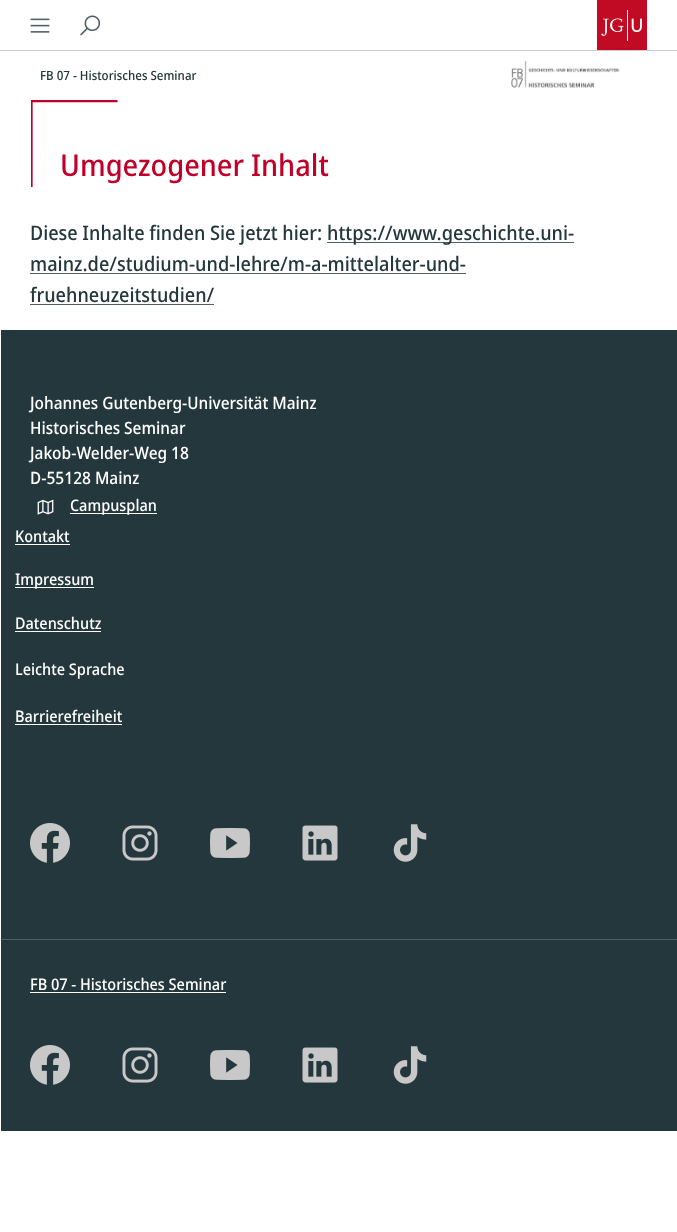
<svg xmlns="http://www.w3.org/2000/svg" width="677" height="1232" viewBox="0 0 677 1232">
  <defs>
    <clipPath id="clip1"><rect x="31" y="100" width="87" height="87"/></clipPath>
  </defs>
  <rect width="100%" height="100%" fill="#ffffff"/>
  <image x="30" y="18" width="20" height="15" href="img1.png"/>
  <image x="80" y="15" width="21" height="21" href="img2.png"/>
  <image x="597" y="0" width="50" height="50" href="img3.png"/>
  <rect x="0" y="50" width="677" height="1" fill="#c8cdce"/>
  <text x="40" y="80" font-family="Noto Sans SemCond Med" font-size="12.75" font-weight="500" fill="#23373c">FB 07 - Historisches Seminar</text>
  <image x="511" y="61" width="109" height="27" href="img4.png"/>
  <g clip-path="url(#clip1)">
    <path d="M30.5 100H117.5M30.5 187V100" fill="none" stroke="#c1002a" stroke-width="4.3"/>
  </g>
  <text x="60" y="176" font-family="Noto Sans SemCond Med" font-size="30" font-weight="500" fill="#c1002a">Umgezogener Inhalt</text>
  <text x="30" y="240" font-family="Noto Sans SemCond Med" font-size="20" font-weight="500" fill="#23373c">Diese Inhalte finden Sie jetzt hier:</text>
  <rect x="327" y="242" width="247" height="1" fill="#4f5f63"/>
  <text x="327" y="240" font-family="Noto Sans SemCond Med" font-size="20" font-weight="500" fill="#23373c">https://www.geschichte.uni-</text>
  <text x="30" y="271" font-family="Noto Sans SemCond Med" font-size="20" font-weight="500" fill="#23373c">mainz.de/studium-und-lehre/m-a-mittelalter-und-</text>
  <rect x="30" y="273" width="436" height="1" fill="#4f5f63"/>
  <text x="30" y="302" font-family="Noto Sans SemCond Med" font-size="20" font-weight="500" fill="#23373c">fruehneuzeitstudien/</text>
  <rect x="30" y="304" width="184" height="1" fill="#4f5f63"/>
  <rect x="1" y="330" width="676" height="609" fill="#23373c"/>
  <text x="30" y="409" font-family="Noto Sans SemCond Med" font-size="17" font-weight="500" fill="#ffffff">Johannes Gutenberg-Universität Mainz</text>
  <text x="30" y="434" font-family="Noto Sans SemCond Med" font-size="17" font-weight="500" fill="#ffffff">Historisches Seminar</text>
  <text x="30" y="459" font-family="Noto Sans SemCond Med" font-size="17" font-weight="500" fill="#ffffff">Jakob-Welder-Weg 18</text>
  <text x="30" y="484" font-family="Noto Sans SemCond Med" font-size="17" font-weight="500" fill="#ffffff">D-55128 Mainz</text>
  <image x="37" y="499" width="17" height="16" href="img5.png"/>
  <rect x="70" y="513" width="87" height="1" fill="#ffffff"/>
  <text x="70" y="511" font-family="Noto Sans SemCond Med" font-size="16" font-weight="500" fill="#ffffff">Campusplan</text>
  <text x="15" y="542" font-family="Noto Sans SemCond Med" font-size="16" font-weight="500" fill="#ffffff">Kontakt</text>
  <rect x="15" y="544" width="55" height="1" fill="#ffffff"/>
  <rect x="15" y="587" width="79" height="1" fill="#ffffff"/>
  <text x="15" y="585" font-family="Noto Sans SemCond Med" font-size="16" font-weight="500" fill="#ffffff">Impressum</text>
  <text x="15" y="629" font-family="Noto Sans SemCond Med" font-size="16" font-weight="500" fill="#ffffff">Datenschutz</text>
  <rect x="15" y="631" width="86" height="1" fill="#ffffff"/>
  <text x="15" y="675" font-family="Noto Sans SemCond Med" font-size="16" font-weight="500" fill="#ffffff">Leichte Sprache</text>
  <text x="15" y="722" font-family="Noto Sans SemCond Med" font-size="16" font-weight="500" fill="#ffffff">Barrierefreiheit</text>
  <rect x="15" y="724" width="107" height="1" fill="#ffffff"/>
  <image x="30" y="823" width="40" height="40" href="img6.png"/>
  <image x="122" y="825" width="36" height="36" href="img7.png"/>
  <image x="210" y="828" width="40" height="30" href="img8.png"/>
  <image x="302" y="825" width="36" height="36" href="img9.png"/>
  <image x="393" y="824" width="34" height="38" href="img10.png"/>
  <rect x="1" y="940" width="676" height="191" fill="#23373c"/>
  <rect x="1" y="939" width="676" height="1" fill="#4f5f63"/>
  <text x="30" y="990" font-family="Noto Sans SemCond Med" font-size="16" font-weight="500" fill="#ffffff">FB 07 - Historisches Seminar</text>
  <rect x="30" y="992" width="196" height="1" fill="#ffffff"/>
  <image x="30" y="1045" width="40" height="40" href="img6.png"/>
  <image x="122" y="1047" width="36" height="36" href="img7.png"/>
  <image x="210" y="1050" width="40" height="30" href="img8.png"/>
  <image x="302" y="1047" width="36" height="36" href="img9.png"/>
  <image x="393" y="1046" width="34" height="38" href="img10.png"/>
</svg>
